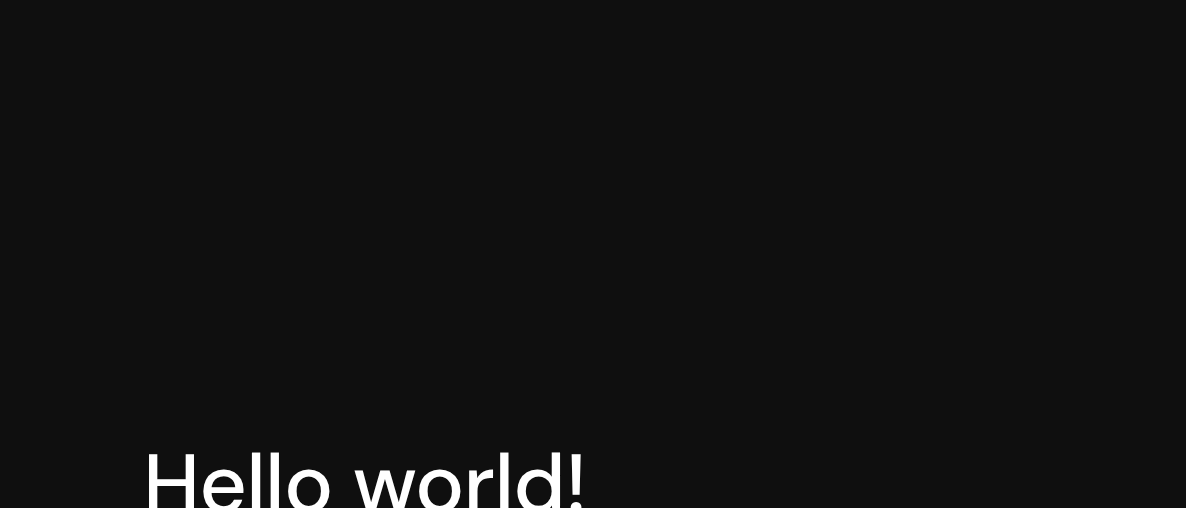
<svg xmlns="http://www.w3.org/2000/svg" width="1186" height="508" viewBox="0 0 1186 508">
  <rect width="100%" height="100%" fill="#0f0f0f"/>
  <text x="143" y="512" font-family="DM Sans" font-size="82.5" font-weight="500" letter-spacing="-0.75" fill="#ffffff">Hello world!</text>
</svg>
